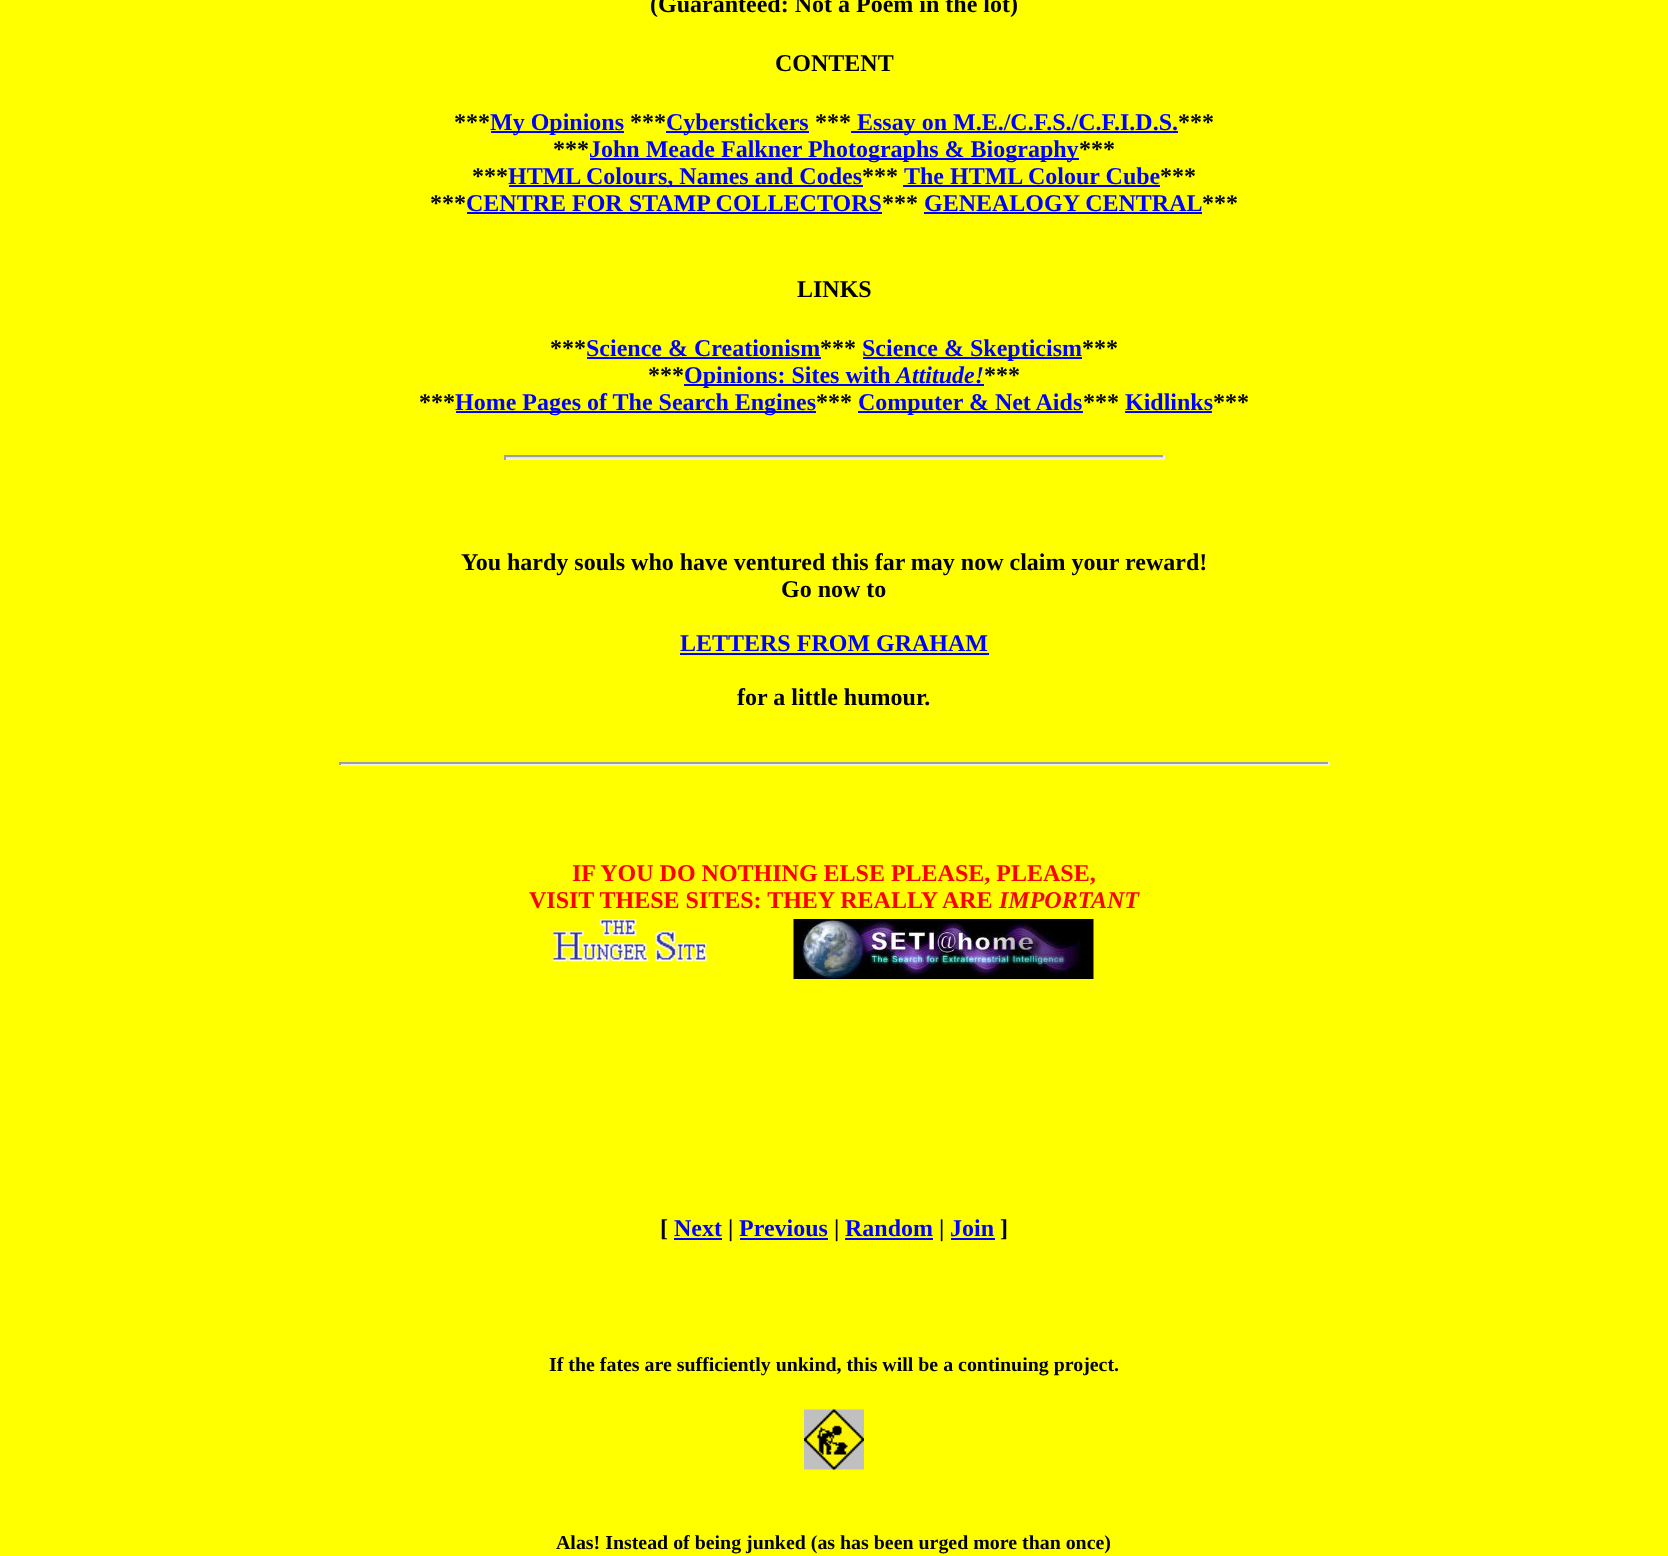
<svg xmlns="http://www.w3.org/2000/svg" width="1668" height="1556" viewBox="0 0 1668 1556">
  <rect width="100%" height="100%" fill="#ffff00"/>
  <text x="650" y="12" font-family="Liberation Serif" font-size="24" font-weight="bold" fill="#000000">(Guaranteed: Not a Poem in the lot)</text>
  <text x="775" y="71" font-family="Liberation Serif" font-size="24" font-weight="bold" fill="#000000">CONTENT</text>
  <text x="454" y="130" font-family="Liberation Serif" font-size="24" font-weight="bold" fill="#000000">***</text>
  <rect x="491" y="131" width="133" height="2" fill="#0000ff"/>
  <text x="490" y="130" font-family="Liberation Serif" font-size="24" font-weight="bold" fill="#0000ff">My Opinions</text>
  <text x="630" y="130" font-family="Liberation Serif" font-size="24" font-weight="bold" fill="#000000">***</text>
  <rect x="666" y="131" width="143" height="2" fill="#0000ff"/>
  <text x="666" y="130" font-family="Liberation Serif" font-size="24" font-weight="bold" fill="#0000ff">Cyberstickers</text>
  <text x="815" y="130" font-family="Liberation Serif" font-size="24" font-weight="bold" fill="#000000">***</text>
  <rect x="851" y="131" width="327" height="2" fill="#0000ff"/>
  <text x="857" y="130" font-family="Liberation Serif" font-size="24" font-weight="bold" fill="#0000ff">Essay on M.E./C.F.S./C.F.I.D.S.</text>
  <text x="1178" y="130" font-family="Liberation Serif" font-size="24" font-weight="bold" fill="#000000">***</text>
  <text x="553" y="157" font-family="Liberation Serif" font-size="24" font-weight="bold" fill="#000000">***</text>
  <rect x="590" y="158" width="489" height="2" fill="#0000ff"/>
  <text x="589" y="157" font-family="Liberation Serif" font-size="24" font-weight="bold" fill="#0000ff">John Meade Falkner Photographs &amp; Biography</text>
  <text x="1079" y="157" font-family="Liberation Serif" font-size="24" font-weight="bold" fill="#000000">***</text>
  <text x="472" y="184" font-family="Liberation Serif" font-size="24" font-weight="bold" fill="#000000">***</text>
  <rect x="509" y="185" width="354" height="2" fill="#0000ff"/>
  <text x="508" y="184" font-family="Liberation Serif" font-size="24" font-weight="bold" fill="#0000ff">HTML Colours, Names and Codes</text>
  <text x="862" y="184" font-family="Liberation Serif" font-size="24" font-weight="bold" fill="#000000">***</text>
  <text x="904" y="184" font-family="Liberation Serif" font-size="24" font-weight="bold" fill="#0000ff">The HTML Colour Cube</text>
  <rect x="903" y="185" width="257" height="2" fill="#0000ff"/>
  <text x="1160" y="184" font-family="Liberation Serif" font-size="24" font-weight="bold" fill="#000000">***</text>
  <text x="430" y="211" font-family="Liberation Serif" font-size="24" font-weight="bold" fill="#000000">***</text>
  <text x="466" y="211" font-family="Liberation Serif" font-size="24" font-weight="bold" fill="#0000ff">CENTRE FOR STAMP COLLECTORS</text>
  <rect x="467" y="212" width="415" height="2" fill="#0000ff"/>
  <text x="882" y="211" font-family="Liberation Serif" font-size="24" font-weight="bold" fill="#000000">***</text>
  <text x="924" y="211" font-family="Liberation Serif" font-size="24" font-weight="bold" fill="#0000ff">GENEALOGY CENTRAL</text>
  <rect x="924" y="212" width="278" height="2" fill="#0000ff"/>
  <text x="1202" y="211" font-family="Liberation Serif" font-size="24" font-weight="bold" fill="#000000">***</text>
  <text x="797" y="297" font-family="Liberation Serif" font-size="24" font-weight="bold" fill="#000000">LINKS</text>
  <text x="550" y="356" font-family="Liberation Serif" font-size="24" font-weight="bold" fill="#000000">***</text>
  <text x="586" y="356" font-family="Liberation Serif" font-size="24" font-weight="bold" fill="#0000ff">Science &amp; Creationism</text>
  <rect x="587" y="357" width="234" height="2" fill="#0000ff"/>
  <text x="820" y="356" font-family="Liberation Serif" font-size="24" font-weight="bold" fill="#000000">***</text>
  <rect x="863" y="357" width="219" height="2" fill="#0000ff"/>
  <text x="862" y="356" font-family="Liberation Serif" font-size="24" font-weight="bold" fill="#0000ff">Science &amp; Skepticism</text>
  <text x="1082" y="356" font-family="Liberation Serif" font-size="24" font-weight="bold" fill="#000000">***</text>
  <text x="648" y="383" font-family="Liberation Serif" font-size="24" font-weight="bold" fill="#000000">***</text>
  <rect x="684" y="384" width="300" height="2" fill="#0000ff"/>
  <text x="684" y="383" font-family="Liberation Serif" font-size="24" font-weight="bold" fill="#0000ff">Opinions: Sites with</text>
  <text x="896" y="383" font-family="Liberation Serif" font-size="24" font-weight="bold" font-style="italic" fill="#0000ff">Attitude!</text>
  <text x="984" y="383" font-family="Liberation Serif" font-size="24" font-weight="bold" fill="#000000">***</text>
  <text x="419" y="410" font-family="Liberation Serif" font-size="24" font-weight="bold" fill="#000000">***</text>
  <rect x="456" y="411" width="360" height="2" fill="#0000ff"/>
  <text x="455" y="410" font-family="Liberation Serif" font-size="24" font-weight="bold" fill="#0000ff">Home Pages of The Search Engines</text>
  <text x="816" y="410" font-family="Liberation Serif" font-size="24" font-weight="bold" fill="#000000">***</text>
  <rect x="858" y="411" width="225" height="2" fill="#0000ff"/>
  <text x="858" y="410" font-family="Liberation Serif" font-size="24" font-weight="bold" fill="#0000ff">Computer &amp; Net Aids</text>
  <text x="1083" y="410" font-family="Liberation Serif" font-size="24" font-weight="bold" fill="#000000">***</text>
  <text x="1125" y="410" font-family="Liberation Serif" font-size="24" font-weight="bold" fill="#0000ff">Kidlinks</text>
  <rect x="1125" y="411" width="87" height="2" fill="#0000ff"/>
  <text x="1213" y="410" font-family="Liberation Serif" font-size="24" font-weight="bold" fill="#000000">***</text>
  <rect x="504" y="455" width="660" height="2" fill="#9f9f9f"/>
  <rect x="1163" y="455" width="2" height="5" fill="#eeeeee"/>
  <rect x="504" y="458" width="660" height="2" fill="#eeeeee"/>
  <rect x="504" y="455" width="2" height="5" fill="#9f9f9f"/>
  <text x="461" y="570" font-family="Liberation Serif" font-size="24" font-weight="bold" fill="#000000">You hardy souls who have ventured this far may now claim your reward!</text>
  <text x="781" y="597" font-family="Liberation Serif" font-size="24" font-weight="bold" fill="#000000">Go now to</text>
  <text x="680" y="651" font-family="Liberation Serif" font-size="24" font-weight="bold" fill="#0000ff">LETTERS FROM GRAHAM</text>
  <rect x="680" y="653" width="309" height="2" fill="#0000ff"/>
  <text x="737" y="705" font-family="Liberation Serif" font-size="24" font-weight="bold" fill="#000000">for a little humour.</text>
  <rect x="339" y="762" width="990" height="2" fill="#9f9f9f"/>
  <rect x="1328" y="762" width="2" height="3" fill="#eeeeee"/>
  <rect x="339" y="764" width="990" height="2" fill="#eeeeee"/>
  <rect x="339" y="762" width="2" height="3" fill="#9f9f9f"/>
  <text x="572" y="881" font-family="Liberation Serif" font-size="24" font-weight="bold" fill="#ff0000">IF YOU DO NOTHING ELSE PLEASE, PLEASE,</text>
  <text x="529" y="908" font-family="Liberation Serif" font-size="24" font-weight="bold" fill="#ff0000">VISIT THESE SITES: THEY REALLY ARE</text>
  <text x="999" y="908" font-family="Liberation Serif" font-size="24" font-weight="bold" font-style="italic" fill="#ff0000">IMPORTANT</text>
  <image x="553" y="919" width="154" height="43" href="img1.png"/>
  <image x="793" y="919" width="301" height="60" href="img2.png"/>
  <text x="660" y="1236" font-family="Liberation Serif" font-size="24" font-weight="bold" fill="#000000">[</text>
  <text x="674" y="1236" font-family="Liberation Serif" font-size="24" font-weight="bold" fill="#0000ff">Next</text>
  <rect x="674" y="1238" width="48" height="2" fill="#0000ff"/>
  <text x="728" y="1236" font-family="Liberation Serif" font-size="24" font-weight="bold" fill="#000000">|</text>
  <text x="739" y="1236" font-family="Liberation Serif" font-size="24" font-weight="bold" fill="#0000ff">Previous</text>
  <rect x="740" y="1238" width="88" height="2" fill="#0000ff"/>
  <text x="834" y="1236" font-family="Liberation Serif" font-size="24" font-weight="bold" fill="#000000">|</text>
  <text x="845" y="1236" font-family="Liberation Serif" font-size="24" font-weight="bold" fill="#0000ff">Random</text>
  <rect x="845" y="1238" width="88" height="2" fill="#0000ff"/>
  <text x="939" y="1236" font-family="Liberation Serif" font-size="24" font-weight="bold" fill="#000000">|</text>
  <text x="950" y="1236" font-family="Liberation Serif" font-size="24" font-weight="bold" fill="#0000ff">Join</text>
  <rect x="951" y="1238" width="44" height="2" fill="#0000ff"/>
  <text x="1000" y="1236" font-family="Liberation Serif" font-size="24" font-weight="bold" fill="#000000">]</text>
  <text x="549" y="1371" font-family="Liberation Serif" font-size="19.9" font-weight="bold" fill="#000000">If the fates are sufficiently unkind, this will be a continuing project.</text>
  <image x="804" y="1409" width="60" height="61" href="img3.png"/>
  <text x="556" y="1549" font-family="Liberation Serif" font-size="19.9" font-weight="bold" fill="#000000">Alas! Instead of being junked (as has been urged more than once)</text>
</svg>
